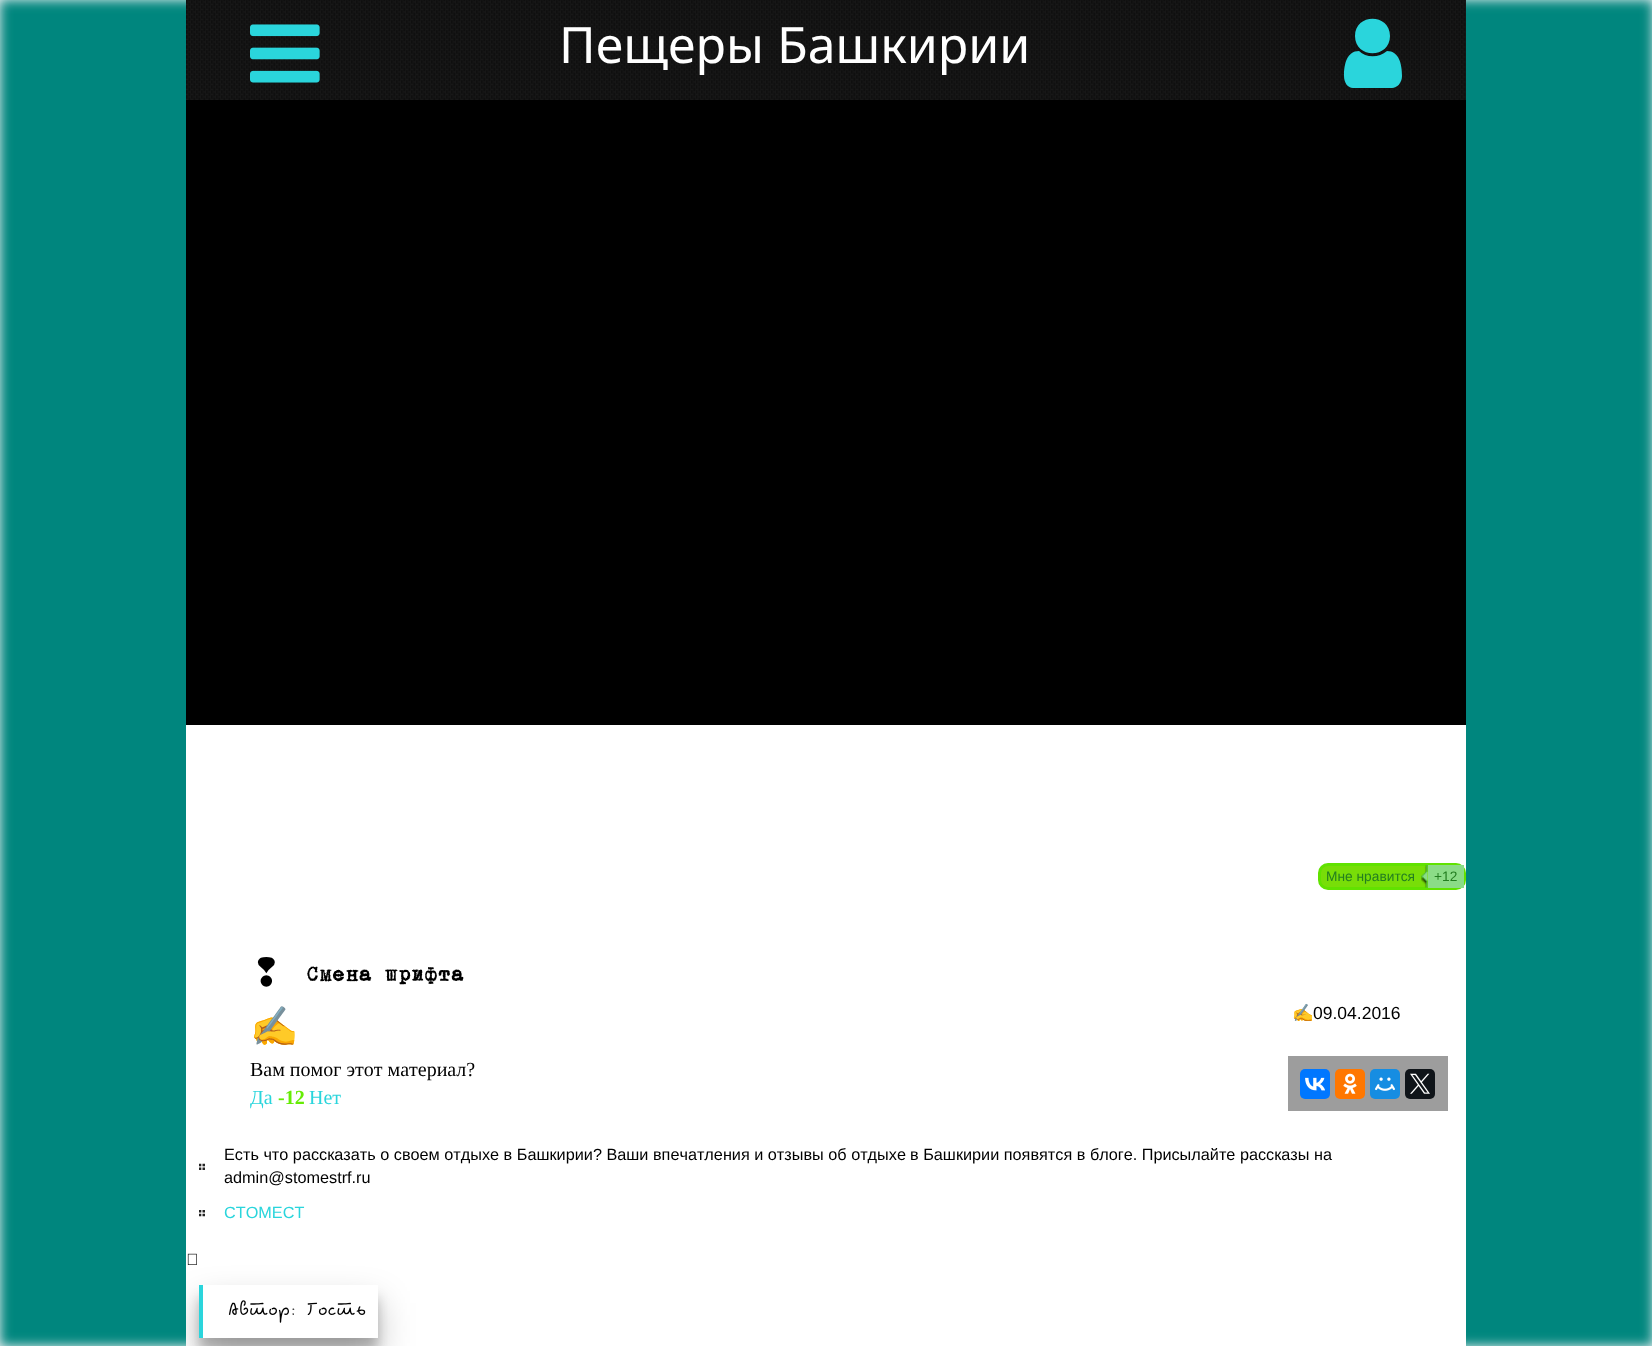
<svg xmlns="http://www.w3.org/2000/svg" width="1652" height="1346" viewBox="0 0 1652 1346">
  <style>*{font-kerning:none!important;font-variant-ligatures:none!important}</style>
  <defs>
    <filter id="blur1" x="-50%" y="-200%" width="200%" height="500%"><feGaussianBlur stdDeviation="6"/></filter>
    <clipPath id="clip1"><rect x="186" y="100" width="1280" height="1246"/></clipPath>
    <filter id="blur2" x="-50%" y="-200%" width="200%" height="500%"><feGaussianBlur stdDeviation="17.5"/></filter>
  </defs>
  <rect width="100%" height="100%" fill="#eceff3"/>
  <rect x="0" y="0" width="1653" height="1346" fill="#04867e" filter="url(#blur1)"/>
  <rect x="186" y="725" width="1280" height="621" fill="#ffffff"/>
  <image x="186" y="0" width="1280" height="100" href="img1.png"/>
  <image x="250" y="24" width="70" height="59" href="img2.png"/>
  <text x="559" y="63" font-family="Noto Sans" font-size="50" fill="#ffffff">Пещеры Башкирии</text>
  <path d="M1402 76C1402 64 1399 51 1387 51C1379 58 1366 58 1359 51C1347 51 1344 64 1344 76C1344 83 1348 88 1353 88H1392C1397 88 1402 83 1402 76ZM1390 36C1390 13 1355 13 1355 36C1355 59 1390 59 1390 36Z" fill="#2ad5dc"/>
  <rect x="186" y="100" width="1280" height="625" fill="#000000"/>
  <rect x="1319.5" y="864.5" width="145" height="24" rx="8.5" fill="#78de08" stroke="#61e200" stroke-width="3"/>
  <image x="1421" y="865" width="7" height="23" href="img3.png"/>
  <text x="1326" y="881" font-family="Liberation Sans" font-size="13.75" fill="#247e20">Mне нравится</text>
  <rect x="1428" y="865" width="36" height="23" fill="#8bdc87"/>
  <text x="1434" y="881" font-family="Liberation Sans" font-size="13.75" fill="#247e20">+12</text>
  <text x="250" y="986" font-family="DejaVu Sans" font-size="39" fill="#000000">❢</text>
  <text x="306" y="981" font-family="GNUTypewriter" font-size="21.25" fill="#000000">Смена шрифта</text>
  <text x="250" y="1040" font-family="Noto Color Emoji" font-size="39" fill="#000000">✍</text>
  <text x="1292" y="1019" font-family="Noto Color Emoji" font-size="17.5" fill="#000000">✍</text>
  <text x="1313" y="1019" font-family="Liberation Sans" font-size="17.5" fill="#000000">09.04.2016</text>
  <text x="250" y="1076" font-family="Liberation Serif" font-size="20" fill="#000000">Вам помог этот материал?</text>
  <text x="250" y="1104" font-family="Liberation Serif" font-size="20" fill="#2ad5dc">Да</text>
  <text x="278" y="1104" font-family="Liberation Serif" font-size="20" font-weight="bold" fill="#66ec04">-12</text>
  <text x="309" y="1104" font-family="Liberation Serif" font-size="20" fill="#2ad5dc">Нет</text>
  <rect x="1288" y="1056" width="160" height="55" fill="#9d9d9d"/>
  <rect x="1300" y="1069" width="30" height="30" rx="5" fill="#0077ff"/>
  <image x="1305" y="1077" width="20" height="14" href="img4.png"/>
  <rect x="1335" y="1069" width="30" height="30" rx="5" fill="#ff7700"/>
  <image x="1343" y="1073" width="14" height="21" href="img5.png"/>
  <rect x="1370" y="1069" width="30" height="30" rx="5" fill="#168de2"/>
  <image x="1375" y="1077" width="20" height="14" href="img6.png"/>
  <rect x="1405" y="1069" width="30" height="30" rx="5" fill="#0f1419"/>
  <image x="1410" y="1073" width="20" height="21" href="img7.png"/>
  <image x="199" y="1163" width="6" height="7" href="img8.png"/>
  <text x="224" y="1160" font-family="Liberation Sans" font-size="16.25" fill="#000000">Есть что рассказать о своем отдыхе в Башкирии? Ваши впечатления и отзывы об отдыхе</text>
  <text x="910" y="1160" font-family="Liberation Sans" font-size="16.25" fill="#000000">в Башкирии появятся в блоге. Присылайте рассказы на</text>
  <text x="224" y="1183" font-family="Liberation Sans" font-size="16.25" fill="#000000">admin@stomestrf.ru</text>
  <image x="199" y="1210" width="6" height="7" href="img9.png"/>
  <text x="224" y="1218" font-family="Liberation Sans" font-size="16.25" fill="#2ad5dc">СТОМЕСТ</text>
  <image x="187" y="1253" width="10" height="12" href="img10.png"/>
  <rect x="199" y="1298" width="179" height="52" fill="#000000" fill-opacity="0.22" filter="url(#blur1)"/>
  <g clip-path="url(#clip1)">
    <rect x="199" y="1303" width="179" height="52" fill="#000000" fill-opacity="0.25" filter="url(#blur2)"/>
  </g>
  <rect x="203" y="1285" width="175" height="53" fill="#ffffff"/>
  <rect x="199" y="1285" width="4" height="53" fill="#2ad5dc"/>
  <text x="228" y="1315" word-spacing="1" font-family="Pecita" font-size="22.5" fill="#000000">Автор: Гость</text>
</svg>
